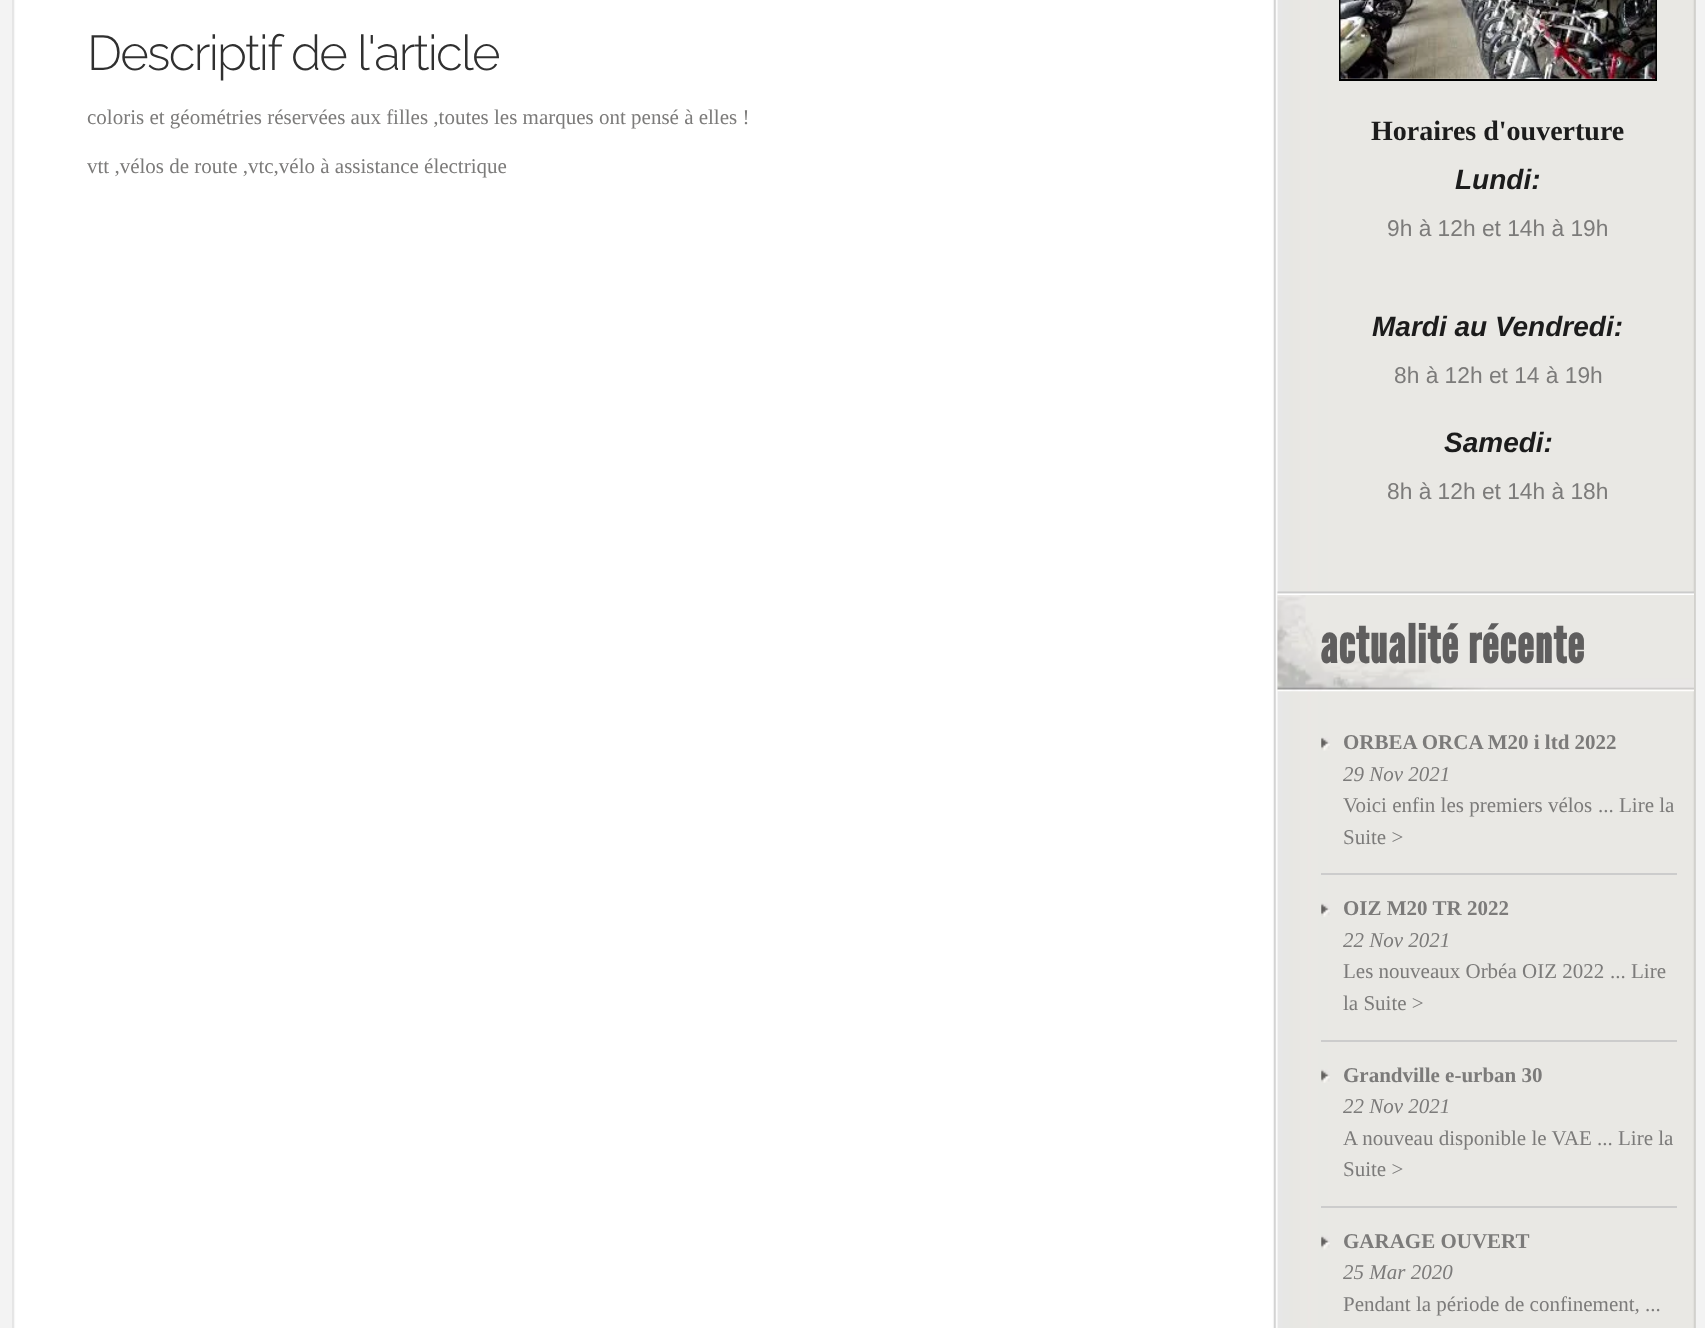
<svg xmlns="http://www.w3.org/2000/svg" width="1705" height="1328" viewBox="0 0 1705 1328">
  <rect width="100%" height="100%" fill="#f3f3f3"/>
  <image x="12" y="0" width="1684" height="1328" href="img1.png"/>
  <text x="87" y="70" font-family="Raleway" font-size="49" font-weight="300" letter-spacing="-1.75" fill="#303030">Descriptif de l'article</text>
  <text x="87" y="124" font-family="Liberation Serif" font-size="21" fill="#7c7b7a">coloris et géométries réservées aux filles ,toutes les marques ont pensé à elles !</text>
  <text x="87" y="173" font-family="Liberation Serif" font-size="21" fill="#7c7b7a">vtt ,vélos de route ,vtc,vélo à assistance électrique</text>
  <image x="1277" y="591" width="417" height="4" href="img2.png"/>
  <rect x="1340" y="-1" width="316" height="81" fill="none" stroke="#000000" stroke-width="2"/>
  <image x="1340" y="0" width="316" height="79" href="img3.png"/>
  <text x="1371" y="140" font-family="Liberation Serif" font-size="28" font-weight="bold" fill="#1c1c1c">Horaires d'ouverture</text>
  <text x="1455" y="189" font-family="Liberation Sans" font-size="28" font-weight="bold" font-style="italic" fill="#1c1c1c">Lundi:</text>
  <text x="1387" y="236" font-family="Liberation Sans" font-size="22.75" fill="#7c7b7a">9h à 12h et 14h à 19h</text>
  <text x="1372" y="336" font-family="Liberation Sans" font-size="28" font-weight="bold" font-style="italic" fill="#1c1c1c">Mardi au Vendredi:</text>
  <text x="1394" y="383" font-family="Liberation Sans" font-size="22.75" fill="#7c7b7a">8h à 12h et 14 à 19h</text>
  <text x="1444" y="452" font-family="Liberation Sans" font-size="28" font-weight="bold" font-style="italic" fill="#1c1c1c">Samedi:</text>
  <text x="1387" y="499" font-family="Liberation Sans" font-size="22.75" fill="#7c7b7a">8h à 12h et 14h à 18h</text>
  <image x="1277" y="595" width="417" height="97" href="img4.png"/>
  <text x="1320" y="663" font-family="League Gothic" font-size="52.5" font-weight="bold" letter-spacing="0.9" fill="#5f5e5e">actualité récente</text>
  <image x="1321" y="737" width="9" height="14" href="img5.png"/>
  <rect x="1321" y="873" width="356" height="2" fill="#cccccc"/>
  <text x="1343" y="749" font-family="Liberation Serif" font-size="21" font-weight="bold" fill="#7c7b7a">ORBEA ORCA M20 i ltd 2022</text>
  <text x="1343" y="781" font-family="Liberation Serif" font-size="21" font-style="italic" fill="#7c7b7a">29 Nov 2021</text>
  <text x="1343" y="812" font-family="Liberation Serif" font-size="21" fill="#7c7b7a">Voici enfin les premiers vélos</text>
  <text x="1598" y="812" font-family="Liberation Serif" font-size="21" fill="#7c7b7a">... Lire la</text>
  <text x="1343" y="844" font-family="Liberation Serif" font-size="21" fill="#7c7b7a">Suite &gt;</text>
  <image x="1321" y="903" width="9" height="14" href="img6.png"/>
  <rect x="1321" y="1040" width="356" height="2" fill="#cccccc"/>
  <text x="1343" y="915" font-family="Liberation Serif" font-size="21" font-weight="bold" fill="#7c7b7a">OIZ M20 TR 2022</text>
  <text x="1343" y="947" font-family="Liberation Serif" font-size="21" font-style="italic" fill="#7c7b7a">22 Nov 2021</text>
  <text x="1343" y="978" font-family="Liberation Serif" font-size="21" fill="#7c7b7a">Les nouveaux Orbéa OIZ 2022</text>
  <text x="1610" y="978" font-family="Liberation Serif" font-size="21" fill="#7c7b7a">... Lire</text>
  <text x="1343" y="1010" font-family="Liberation Serif" font-size="21" fill="#7c7b7a">la Suite &gt;</text>
  <image x="1321" y="1069" width="9" height="14" href="img7.png"/>
  <rect x="1321" y="1206" width="356" height="2" fill="#cccccc"/>
  <text x="1343" y="1082" font-family="Liberation Serif" font-size="21" font-weight="bold" fill="#7c7b7a">Grandville e-urban 30</text>
  <text x="1343" y="1113" font-family="Liberation Serif" font-size="21" font-style="italic" fill="#7c7b7a">22 Nov 2021</text>
  <text x="1343" y="1145" font-family="Liberation Serif" font-size="21" fill="#7c7b7a">A nouveau disponible le VAE</text>
  <text x="1597" y="1145" font-family="Liberation Serif" font-size="21" fill="#7c7b7a">... Lire la</text>
  <text x="1343" y="1176" font-family="Liberation Serif" font-size="21" fill="#7c7b7a">Suite &gt;</text>
  <image x="1321" y="1235" width="9" height="15" href="img8.png"/>
  <text x="1343" y="1248" font-family="Liberation Serif" font-size="21" font-weight="bold" fill="#7c7b7a">GARAGE OUVERT</text>
  <text x="1343" y="1279" font-family="Liberation Serif" font-size="21" font-style="italic" fill="#7c7b7a">25 Mar 2020</text>
  <text x="1343" y="1311" font-family="Liberation Serif" font-size="21" fill="#7c7b7a">Pendant la période de confinement,</text>
  <text x="1645" y="1311" font-family="Liberation Serif" font-size="21" fill="#7c7b7a">...</text>
</svg>
